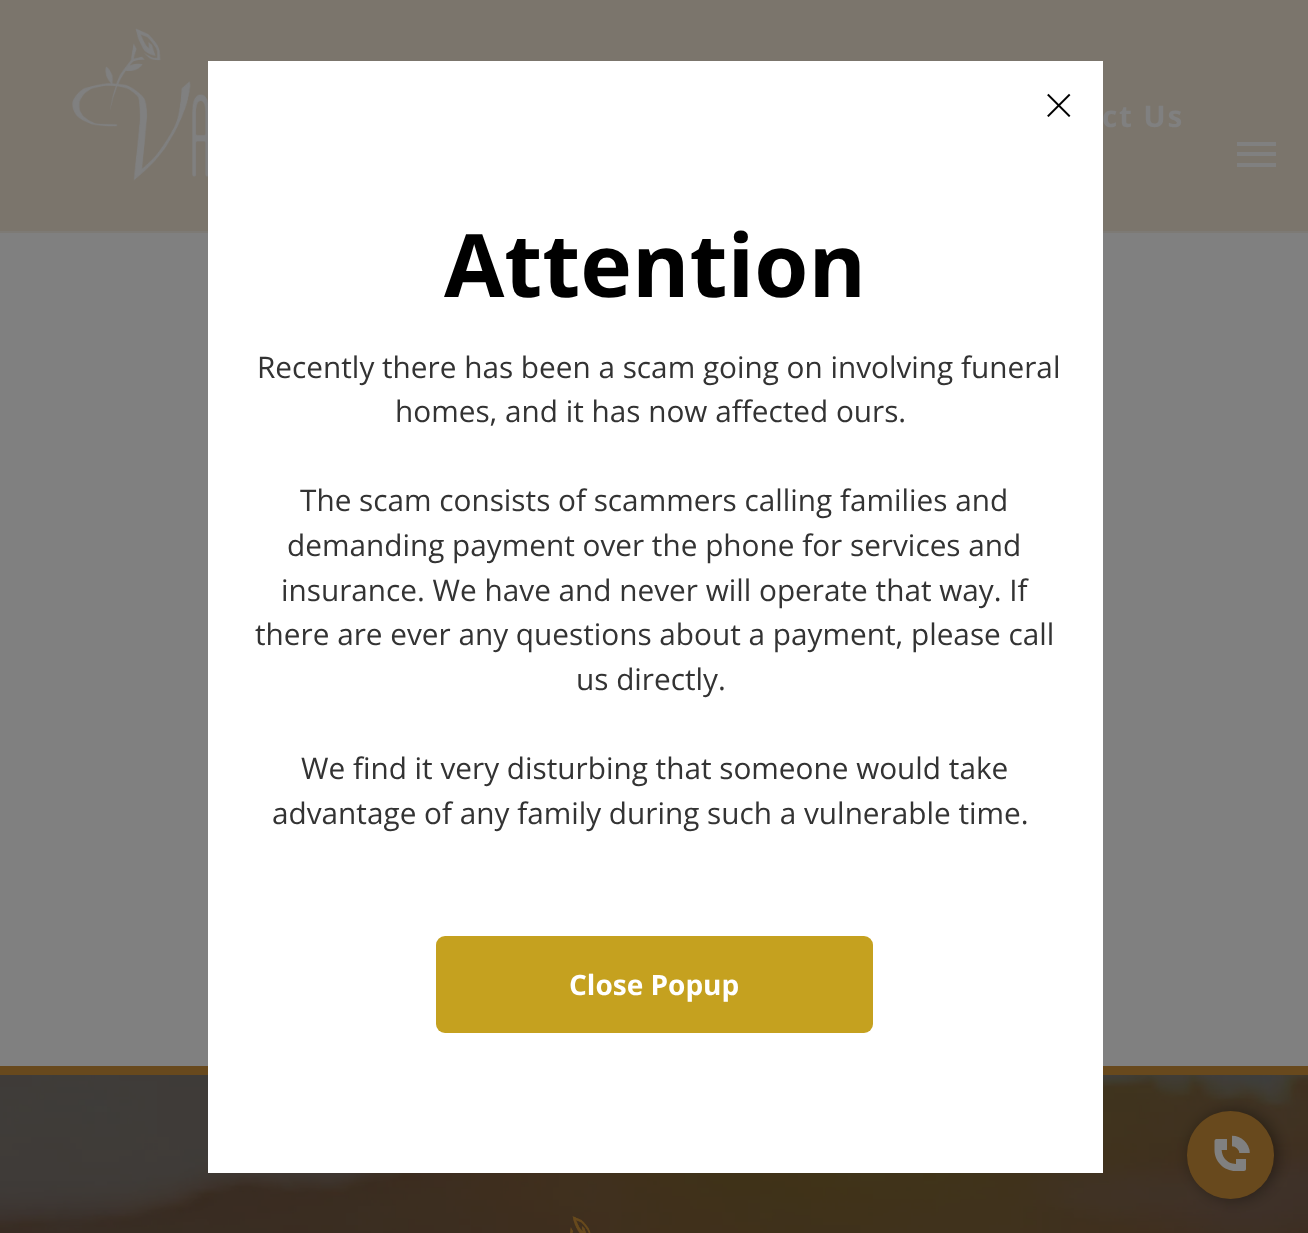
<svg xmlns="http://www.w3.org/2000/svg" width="1308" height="1233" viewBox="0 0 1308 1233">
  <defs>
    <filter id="blur1" x="-50%" y="-200%" width="200%" height="500%"><feGaussianBlur stdDeviation="8"/></filter>
  </defs>
  <rect width="100%" height="100%" fill="#808080"/>
  <rect x="0" y="0" width="1308" height="231" fill="#7b756c"/>
  <rect x="0" y="231" width="1308" height="2" fill="#7d7a75"/>
  <image x="72" y="28" width="136" height="153" href="img1.png"/>
  <text x="1102" y="127" font-family="Open Sans" font-size="29.75" font-weight="bold" letter-spacing="1.75" fill="#808080">ct Us</text>
  <rect x="1237" y="142" width="39" height="4" fill="#808080"/>
  <rect x="1237" y="152" width="39" height="4" fill="#808080"/>
  <rect x="1237" y="163" width="39" height="4" fill="#808080"/>
  <image x="0" y="1075" width="1308" height="158" href="img3.png"/>
  <rect x="0" y="1066" width="1308" height="9" fill="#68491d"/>
  <rect x="208" y="61" width="895" height="1112" fill="#ffffff"/>
  <image x="1047" y="93" width="24" height="24" href="img2.png"/>
  <text x="444" y="297" font-family="Open Sans" font-size="87.5" font-weight="bold" fill="#000000">Attention</text>
  <text x="257" y="378" font-family="Open Sans" font-size="29.75" fill="#333333">Recently there has been a scam going on involving funeral</text>
  <text x="395" y="422" font-family="Open Sans" font-size="29.75" fill="#333333">homes, and it has now affected ours.</text>
  <text x="300" y="511" font-family="Open Sans" font-size="29.75" fill="#333333">The scam consists of scammers calling families and</text>
  <text x="287" y="556" font-family="Open Sans" font-size="29.75" fill="#333333">demanding payment over the phone for services and</text>
  <text x="281" y="601" font-family="Open Sans" font-size="29.75" fill="#333333">insurance. We have and never will operate that way. If</text>
  <text x="255" y="645" font-family="Open Sans" font-size="29.75" fill="#333333">there are ever any questions about a payment, please call</text>
  <text x="576" y="690" font-family="Open Sans" font-size="29.75" fill="#333333">us directly.</text>
  <text x="301" y="779" font-family="Open Sans" font-size="29.75" fill="#333333">We find it very disturbing that someone would take</text>
  <text x="272" y="824" font-family="Open Sans" font-size="29.75" fill="#333333">advantage of any family during such a vulnerable time.</text>
  <rect x="436" y="936" width="437" height="97" rx="9" fill="#c5a11f"/>
  <text x="569" y="995" font-family="Open Sans" font-size="28" font-weight="bold" fill="#ffffff">Close Popup</text>
  <image x="570" y="1216" width="21" height="17" href="img4.png"/>
  <rect x="1190" y="1111" width="88" height="88" rx="44" fill="#000000" fill-opacity="0.39" filter="url(#blur1)"/>
  <rect x="1187" y="1111" width="87" height="88" rx="43.5" fill="#68491d"/>
  <path d="M1232 1141C1238.5 1141 1244.5 1146.5 1244.5 1153" fill="none" stroke="#808080" stroke-width="10.5"/>
  <rect x="1221" y="1139" width="6" height="11" fill="#808080"/>
  <rect x="1236" y="1159" width="10" height="6" fill="#808080"/>
  <path d="M1216 1139H1246V1169C1246 1170 1245 1171 1244 1171H1235.5C1224 1171 1214.5 1161.5 1214.5 1150V1141C1214.5 1140 1215.5 1139 1216 1139ZM1221.5 1139H1246V1164C1241.5 1164 1237 1164.5 1232.5 1163.5C1227.5 1162.5 1223 1158 1222 1152.5C1221 1148.5 1221.5 1143.5 1221.5 1139Z" fill="#808080" fill-rule="evenodd"/>
</svg>
